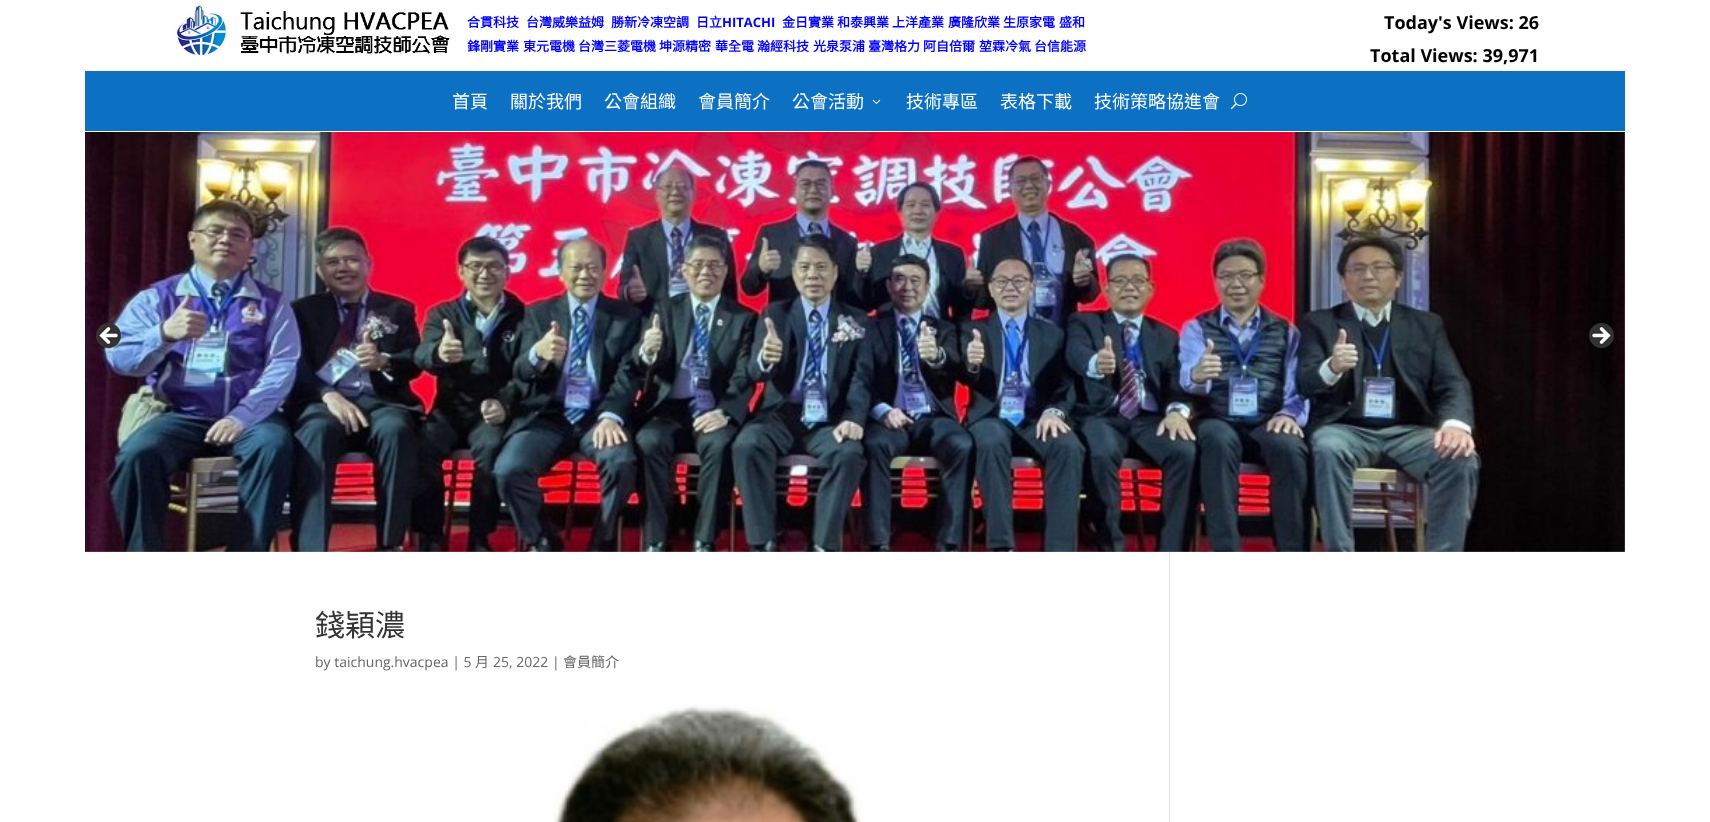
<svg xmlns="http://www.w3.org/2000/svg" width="1710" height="822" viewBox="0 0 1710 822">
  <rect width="100%" height="100%" fill="#ffffff"/>
  <image x="174" y="2" width="276" height="54" href="img1.png"/>
  <text x="467" y="27" font-family="Noto Sans CJK TC" font-size="13" font-weight="bold" fill="#0000ff">合貫科技</text>
  <text x="526" y="27" font-family="Noto Sans CJK TC" font-size="13" font-weight="bold" fill="#0000ff">台灣威樂益姆</text>
  <text x="611" y="27" font-family="Noto Sans CJK TC" font-size="13" font-weight="bold" fill="#0000ff">勝新冷凍空調</text>
  <text x="696" y="27" font-family="Noto Sans CJK TC" font-size="13" font-weight="bold" fill="#0000ff">日立</text>
  <text x="722" y="27" font-family="Open Sans" font-size="13" font-weight="bold" fill="#0000ff">HITACHI</text>
  <text x="782" y="27" font-family="Noto Sans CJK TC" font-size="13" font-weight="bold" fill="#0000ff">金日實業</text>
  <text x="837" y="27" font-family="Noto Sans CJK TC" font-size="13" font-weight="bold" fill="#0000ff">和泰興業</text>
  <text x="892" y="27" font-family="Noto Sans CJK TC" font-size="13" font-weight="bold" fill="#0000ff">上洋產業</text>
  <text x="948" y="27" font-family="Noto Sans CJK TC" font-size="13" font-weight="bold" fill="#0000ff">廣隆欣業</text>
  <text x="1003" y="27" font-family="Noto Sans CJK TC" font-size="13" font-weight="bold" fill="#0000ff">生原家電</text>
  <text x="1059" y="27" font-family="Noto Sans CJK TC" font-size="13" font-weight="bold" fill="#0000ff">盛和</text>
  <text x="467" y="51" font-family="Noto Sans CJK TC" font-size="13" font-weight="bold" fill="#0000ff">鋒剛實業</text>
  <text x="523" y="51" font-family="Noto Sans CJK TC" font-size="13" font-weight="bold" fill="#0000ff">東元電機</text>
  <text x="578" y="51" font-family="Noto Sans CJK TC" font-size="13" font-weight="bold" fill="#0000ff">台灣三菱電機</text>
  <text x="659" y="51" font-family="Noto Sans CJK TC" font-size="13" font-weight="bold" fill="#0000ff">坤源精密</text>
  <text x="715" y="51" font-family="Noto Sans CJK TC" font-size="13" font-weight="bold" fill="#0000ff">華全電</text>
  <text x="757" y="51" font-family="Noto Sans CJK TC" font-size="13" font-weight="bold" fill="#0000ff">瀚經科技</text>
  <text x="813" y="51" font-family="Noto Sans CJK TC" font-size="13" font-weight="bold" fill="#0000ff">光泉泵浦</text>
  <text x="868" y="51" font-family="Noto Sans CJK TC" font-size="13" font-weight="bold" fill="#0000ff">臺灣格力</text>
  <text x="923" y="51" font-family="Noto Sans CJK TC" font-size="13" font-weight="bold" fill="#0000ff">阿自倍爾</text>
  <text x="979" y="51" font-family="Noto Sans CJK TC" font-size="13" font-weight="bold" fill="#0000ff">堃霖冷氣</text>
  <text x="1034" y="51" font-family="Noto Sans CJK TC" font-size="13" font-weight="bold" fill="#0000ff">台信能源</text>
  <text x="1384" y="29" font-family="Open Sans" font-size="18" font-weight="bold" fill="#000000">Today's Views: 26</text>
  <text x="1370" y="62" font-family="Open Sans" font-size="18" font-weight="bold" fill="#000000">Total Views: 39,971</text>
  <rect x="85" y="71" width="1540" height="60" fill="#0c71c3"/>
  <text x="452" y="108" font-family="Noto Sans CJK TC" font-size="18" fill="#ffffff">首頁</text>
  <text x="510" y="108" font-family="Noto Sans CJK TC" font-size="18" fill="#ffffff">關於我們</text>
  <text x="604" y="108" font-family="Noto Sans CJK TC" font-size="18" fill="#ffffff">公會組織</text>
  <text x="698" y="108" font-family="Noto Sans CJK TC" font-size="18" fill="#ffffff">會員簡介</text>
  <text x="792" y="108" font-family="Noto Sans CJK TC" font-size="18" fill="#ffffff">公會活動</text>
  <image x="872" y="99" width="9" height="5" href="img2.png"/>
  <text x="906" y="108" font-family="Noto Sans CJK TC" font-size="18" fill="#ffffff">技術專區</text>
  <text x="1000" y="108" font-family="Noto Sans CJK TC" font-size="18" fill="#ffffff">表格下載</text>
  <text x="1094" y="108" font-family="Noto Sans CJK TC" font-size="18" fill="#ffffff">技術策略協進會</text>
  <image x="1231" y="93" width="16" height="16" href="img3.png"/>
  <image x="85" y="132" width="1540" height="420" href="img4.png"/>
  <image x="96" y="323" width="25" height="25" href="img5.png"/>
  <image x="1589" y="323" width="25" height="25" href="img6.png"/>
  <text x="315" y="636" font-family="Noto Sans CJK TC" font-size="30" fill="#333333">錢穎濃</text>
  <text x="315" y="667" font-family="Open Sans" font-size="14" fill="#666666">by taichung.hvacpea | 5</text>
  <text x="475" y="667" font-family="Noto Sans CJK TC" font-size="14" fill="#666666">月</text>
  <text x="493" y="667" font-family="Open Sans" font-size="14" fill="#666666">25, 2022 |</text>
  <text x="563" y="667" font-family="Noto Sans CJK TC" font-size="14" fill="#666666">會員簡介</text>
  <image x="552" y="704" width="312" height="118" href="img7.png"/>
  <rect x="1169" y="552" width="1" height="270" fill="#e2e2e2"/>
</svg>
